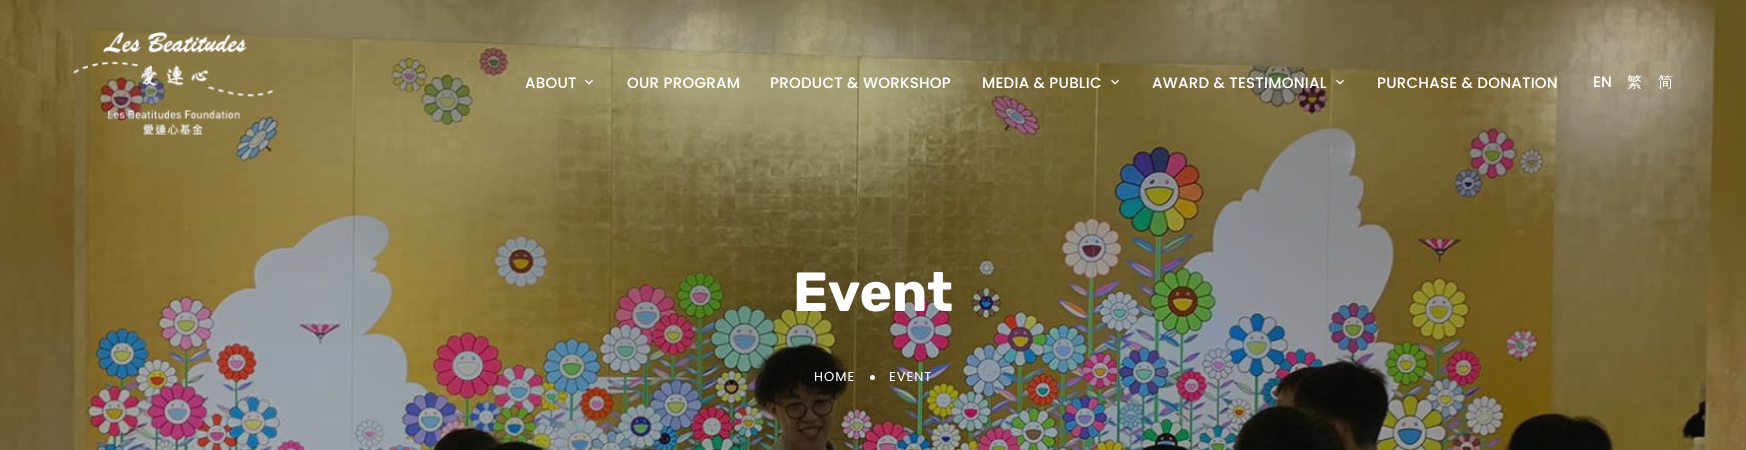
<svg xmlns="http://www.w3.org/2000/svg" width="1746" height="450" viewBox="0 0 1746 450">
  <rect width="100%" height="100%" fill="#ffffff"/>
  <image x="0" y="0" width="1746" height="450" href="img5.png"/>
  <image x="73" y="32" width="200" height="103" href="img1.png"/>
  <text x="525" y="88" font-family="Poppins" font-size="15" font-weight="500" letter-spacing="0.25" fill="#ffffff">ABOUT</text>
  <image x="585" y="79" width="8" height="6" href="img2.png"/>
  <text x="627" y="88" font-family="Poppins" font-size="15" font-weight="500" letter-spacing="0.25" fill="#ffffff">OUR PROGRAM</text>
  <text x="770" y="88" font-family="Poppins" font-size="15" font-weight="500" letter-spacing="0.25" fill="#ffffff">PRODUCT &amp; WORKSHOP</text>
  <text x="982" y="88" font-family="Poppins" font-size="15" font-weight="500" letter-spacing="0.25" fill="#ffffff">MEDIA &amp; PUBLIC</text>
  <image x="1111" y="79" width="8" height="6" href="img3.png"/>
  <text x="1152" y="88" font-family="Poppins" font-size="15" font-weight="500" letter-spacing="0.25" fill="#ffffff">AWARD &amp; TESTIMONIAL</text>
  <image x="1336" y="79" width="8" height="6" href="img4.png"/>
  <text x="1377" y="88" font-family="Poppins" font-size="15" font-weight="500" letter-spacing="0.25" fill="#ffffff">PURCHASE &amp; DONATION</text>
  <text x="1593" y="87" font-family="Poppins" font-size="15" font-weight="500" letter-spacing="0.25" fill="#ffffff">EN</text>
  <text x="1627" y="87" font-family="WenQuanYi Zen Hei" font-size="15" font-weight="500" letter-spacing="0.25" fill="#ffffff">繁</text>
  <text x="1658" y="87" font-family="WenQuanYi Zen Hei" font-size="15" font-weight="500" letter-spacing="0.25" fill="#ffffff">简</text>
  <text x="793" y="311" font-family="Rubik" font-size="55" font-weight="bold" fill="#ffffff">Event</text>
  <text x="814" y="381" font-family="Poppins" font-size="13" letter-spacing="1" fill="#ffffff">HOME</text>
  <circle cx="872.5" cy="377.5" r="2.5" fill="#ffffff"/>
  <text x="889" y="381" font-family="Poppins" font-size="13" letter-spacing="1" fill="#ffffff">EVENT</text>
</svg>
